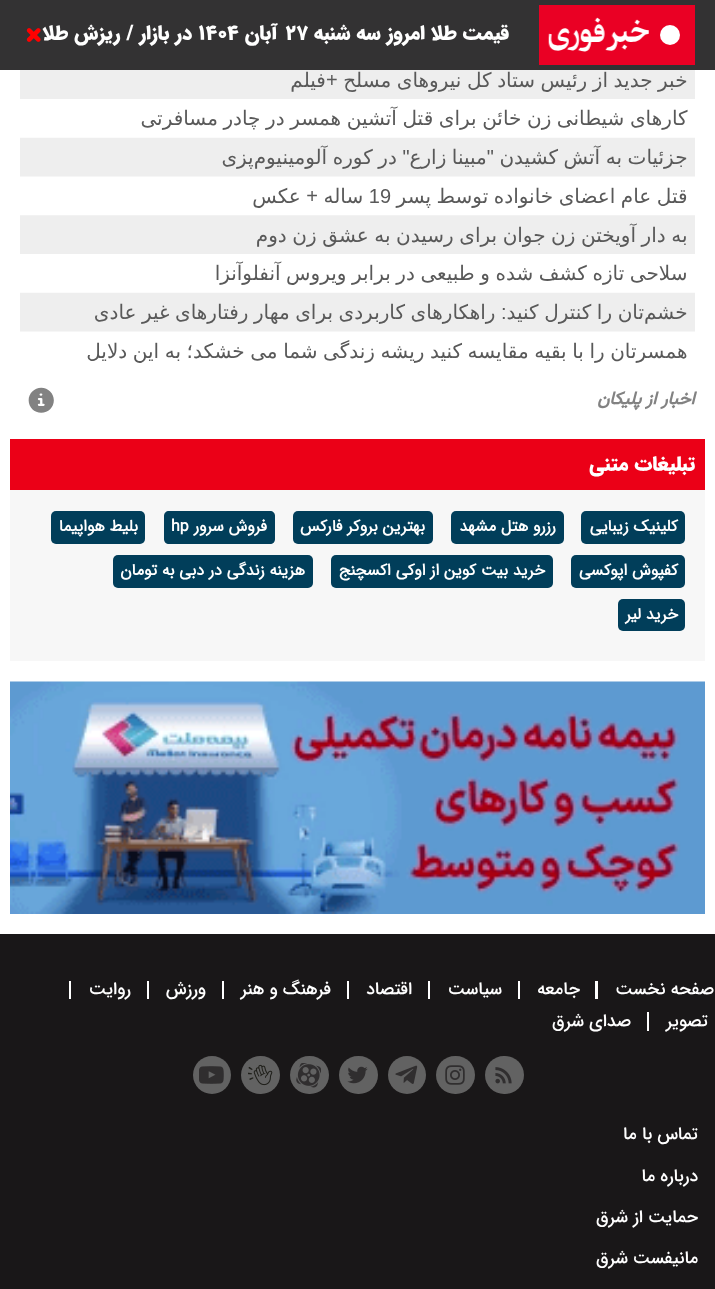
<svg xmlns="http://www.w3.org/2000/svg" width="715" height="1289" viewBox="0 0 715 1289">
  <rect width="100%" height="100%" fill="#ffffff"/>
  <rect x="0" y="0" width="715" height="70" fill="#333233"/>
  <rect x="539" y="5" width="156" height="60" fill="#ea0024"/>
  <circle cx="670" cy="35" r="10" fill="#ffffff"/>
  <image x="548" y="17" width="101" height="35" href="img1.png"/>
  <text x="509" y="39" font-family="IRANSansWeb" font-size="20" font-weight="900" direction="rtl" fill="#ffffff">قیمت طلا امروز سه شنبه</text>
  <text x="285" y="39" font-family="IRANSansWeb" font-size="20" font-weight="900" fill="#ffffff">۲۷</text>
  <text x="278" y="39" font-family="IRANSansWeb" font-size="20" font-weight="900" direction="rtl" fill="#ffffff">آبان</text>
  <text x="198" y="39" font-family="IRANSansWeb" font-size="20" font-weight="900" fill="#ffffff">۱۴۰۴</text>
  <text x="192" y="39" font-family="IRANSansWeb" font-size="20" font-weight="900" direction="rtl" fill="#ffffff">در بازار / ریزش طلا</text>
  <image x="26" y="28" width="15" height="14" href="img2.png"/>
  <image x="20" y="70" width="677" height="343" href="img3.png"/>
  <rect x="10" y="439" width="695" height="51" fill="#eb0017"/>
  <text x="695" y="470" font-family="IRANSansWeb" font-size="20" font-weight="900" direction="rtl" fill="#ffffff">تبلیغات متنی</text>
  <rect x="10" y="490" width="695" height="171" fill="#f7f7f7"/>
  <rect x="581" y="511" width="104" height="33" rx="5" fill="#013e5a"/>
  <text x="678" y="531" font-family="IRANSansWeb" font-size="16" font-weight="bold" direction="rtl" fill="#ffffff">کلینیک زیبایی</text>
  <rect x="451" y="511" width="113" height="33" rx="5" fill="#013e5a"/>
  <text x="556" y="531" font-family="IRANSansWeb" font-size="16" font-weight="bold" direction="rtl" fill="#ffffff">رزرو هتل مشهد</text>
  <rect x="293" y="511" width="140" height="33" rx="5" fill="#013e5a"/>
  <text x="425" y="531" font-family="IRANSansWeb" font-size="16" font-weight="bold" direction="rtl" fill="#ffffff">بهترین بروکر فارکس</text>
  <path d="M189 511H270C273 511 275 513 275 516V539C275 542 273 544 270 544H189Z" fill="#013e5a"/>
  <text x="267" y="531" font-family="IRANSansWeb" font-size="16" font-weight="bold" direction="rtl" fill="#ffffff">فروش سرور</text>
  <path d="M169 511H189V544H169C166 544 164 542 164 539V516C164 513 166 511 169 511Z" fill="#013e5a"/>
  <text x="171" y="531" font-family="IRANSansWeb" font-size="16" font-weight="bold" fill="#ffffff">hp</text>
  <rect x="51" y="511" width="94" height="33" rx="5" fill="#013e5a"/>
  <text x="138" y="531" font-family="IRANSansWeb" font-size="16" font-weight="bold" direction="rtl" fill="#ffffff">بلیط هواپیما</text>
  <rect x="571" y="555" width="114" height="33" rx="5" fill="#013e5a"/>
  <text x="678" y="575" font-family="IRANSansWeb" font-size="16" font-weight="bold" direction="rtl" fill="#ffffff">کفپوش اپوکسی</text>
  <rect x="331" y="555" width="222" height="33" rx="5" fill="#013e5a"/>
  <text x="545" y="575" font-family="IRANSansWeb" font-size="16" font-weight="bold" direction="rtl" fill="#ffffff">خرید بیت کوین از اوکی اکسچنج</text>
  <rect x="113" y="555" width="200" height="33" rx="5" fill="#013e5a"/>
  <text x="305" y="575" font-family="IRANSansWeb" font-size="16" font-weight="bold" direction="rtl" fill="#ffffff">هزینه زندگی در دبی به تومان</text>
  <rect x="618" y="599" width="67" height="32" rx="5" fill="#013e5a"/>
  <text x="678" y="619" font-family="IRANSansWeb" font-size="16" font-weight="bold" direction="rtl" fill="#ffffff">خرید لیر</text>
  <image x="10" y="681" width="695" height="233" href="img4.png"/>
  <rect x="0" y="934" width="715" height="355" fill="#191718"/>
  <text x="714" y="994" font-family="IRANSansWeb" font-size="17.5" font-weight="500" direction="rtl" fill="#ffffff">صفحه نخست</text>
  <rect x="595" y="981" width="3" height="18" fill="#ffffff"/>
  <text x="580" y="994" font-family="IRANSansWeb" font-size="17.5" font-weight="500" direction="rtl" fill="#ffffff">جامعه</text>
  <rect x="518" y="981" width="2" height="18" fill="#ffffff"/>
  <text x="502" y="994" font-family="IRANSansWeb" font-size="17.5" font-weight="500" direction="rtl" fill="#ffffff">سیاست</text>
  <rect x="428" y="981" width="2" height="18" fill="#ffffff"/>
  <text x="412" y="994" font-family="IRANSansWeb" font-size="17.5" font-weight="500" direction="rtl" fill="#ffffff">اقتصاد</text>
  <rect x="347" y="981" width="2" height="18" fill="#ffffff"/>
  <text x="331" y="994" font-family="IRANSansWeb" font-size="17.5" font-weight="500" direction="rtl" fill="#ffffff">فرهنگ و هنر</text>
  <rect x="222" y="981" width="2" height="18" fill="#ffffff"/>
  <text x="206" y="994" font-family="IRANSansWeb" font-size="17.5" font-weight="500" direction="rtl" fill="#ffffff">ورزش</text>
  <rect x="147" y="981" width="2" height="18" fill="#ffffff"/>
  <text x="131" y="994" font-family="IRANSansWeb" font-size="17.5" font-weight="500" direction="rtl" fill="#ffffff">روایت</text>
  <rect x="69" y="981" width="2" height="18" fill="#ffffff"/>
  <text x="708" y="1026" font-family="IRANSansWeb" font-size="17.5" font-weight="500" direction="rtl" fill="#ffffff">تصویر</text>
  <rect x="647" y="1012" width="2" height="19" fill="#ffffff"/>
  <text x="631" y="1026" font-family="IRANSansWeb" font-size="17.5" font-weight="500" direction="rtl" fill="#ffffff">صدای شرق</text>
  <rect x="485" y="1056" width="39" height="38" rx="19" fill="#626262"/>
  <image x="495" y="1067" width="17" height="17" href="img5.png"/>
  <rect x="436" y="1056" width="39" height="38" rx="19" fill="#626262"/>
  <image x="445" y="1065" width="20" height="20" href="img6.png"/>
  <circle cx="407" cy="1075" r="19" fill="#626262"/>
  <image x="395" y="1065" width="23" height="19" href="img7.png"/>
  <rect x="339" y="1056" width="39" height="38" rx="19" fill="#626262"/>
  <image x="347" y="1066" width="21" height="18" href="img8.png"/>
  <rect x="290" y="1056" width="39" height="38" rx="19" fill="#626262"/>
  <image x="296" y="1063" width="25" height="25" href="img9.png"/>
  <rect x="241" y="1056" width="39" height="38" rx="19" fill="#626262"/>
  <image x="248" y="1064" width="25" height="22" href="img10.png"/>
  <circle cx="212" cy="1075" r="19" fill="#626262"/>
  <image x="199" y="1066" width="25" height="18" href="img11.png"/>
  <text x="698" y="1139" font-family="IRANSansWeb" font-size="17.5" font-weight="500" direction="rtl" fill="#ffffff">تماس با ما</text>
  <text x="698" y="1181" font-family="IRANSansWeb" font-size="17.5" font-weight="500" direction="rtl" fill="#ffffff">درباره ما</text>
  <text x="698" y="1222" font-family="IRANSansWeb" font-size="17.5" font-weight="500" direction="rtl" fill="#ffffff">حمایت از شرق</text>
  <text x="698" y="1263" font-family="IRANSansWeb" font-size="17.5" font-weight="500" direction="rtl" fill="#ffffff">مانیفست شرق</text>
</svg>
